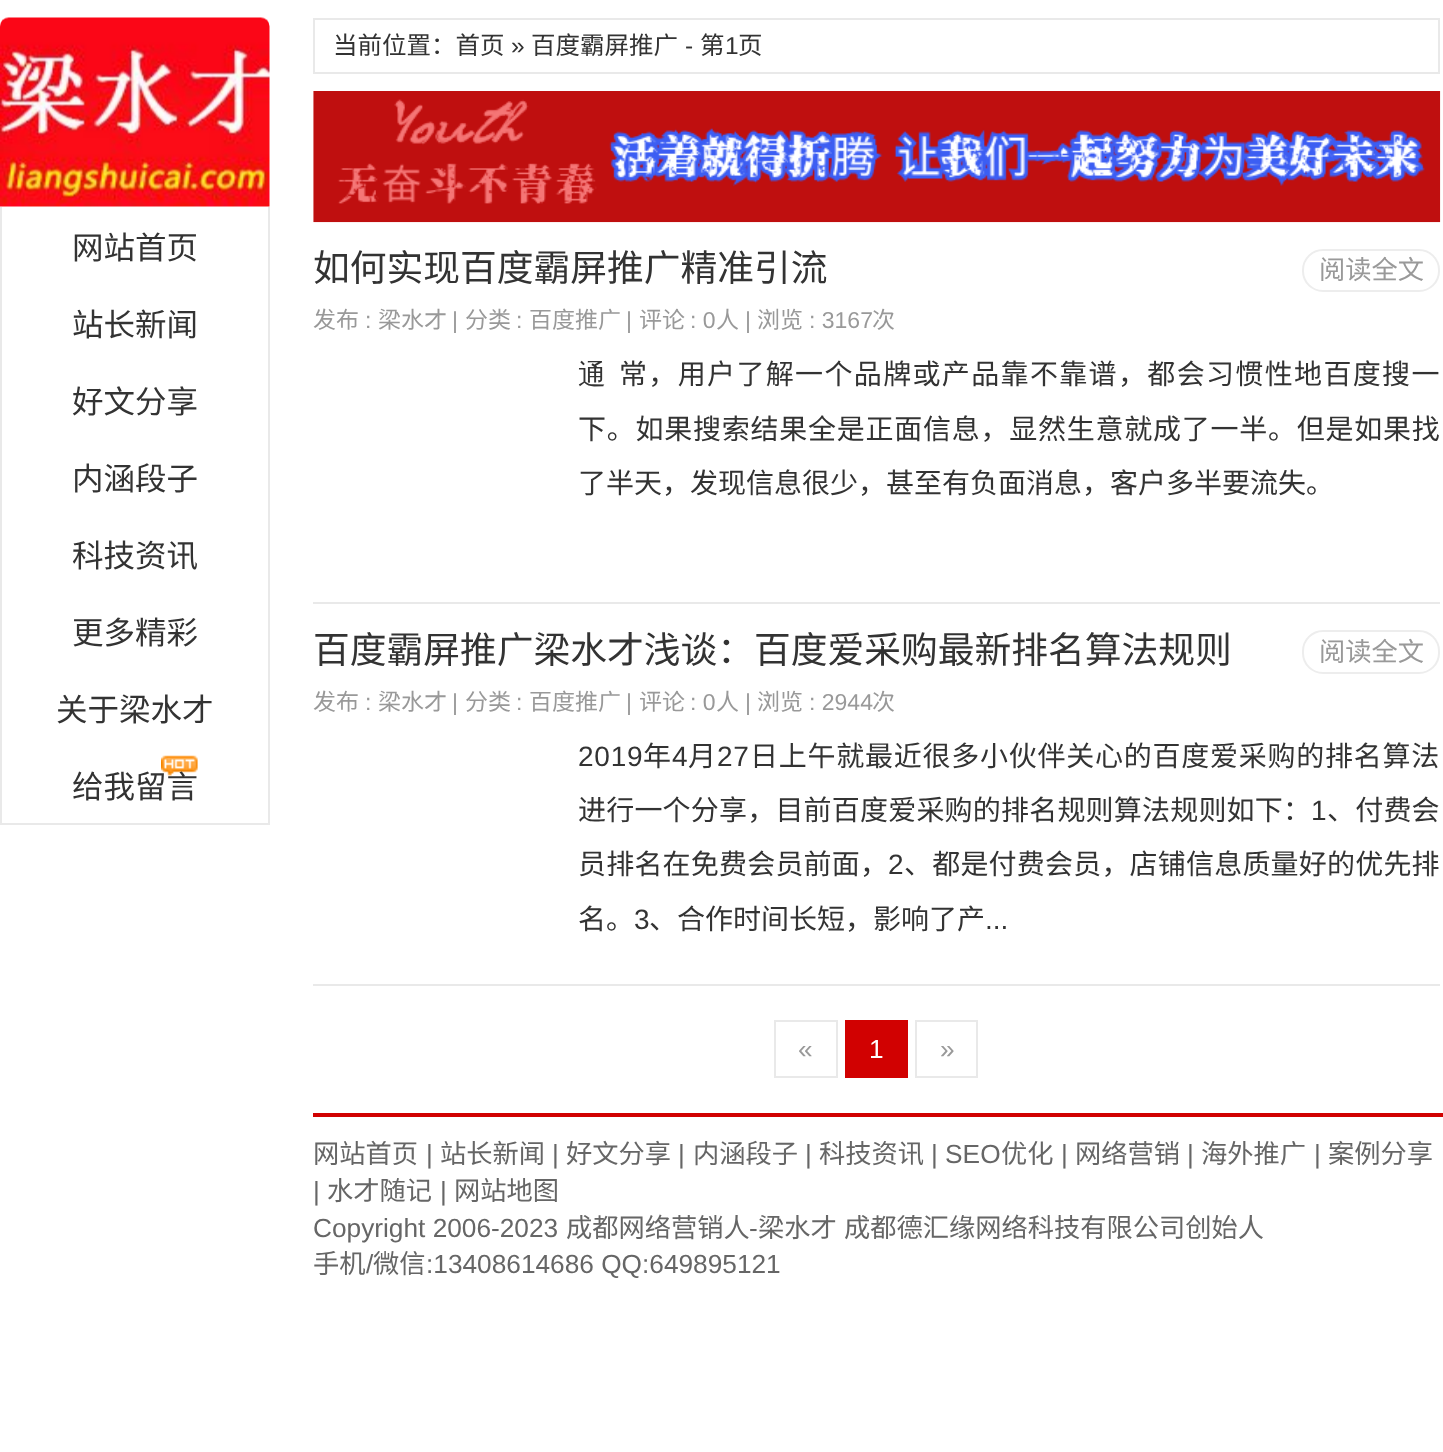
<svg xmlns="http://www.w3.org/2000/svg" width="1443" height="1452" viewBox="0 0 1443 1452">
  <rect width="100%" height="100%" fill="#ffffff"/>
  <image x="0" y="17" width="270" height="190" href="img1.png"/>
  <rect x="268" y="207" width="2" height="617" fill="#e9e9e9"/>
  <rect x="0" y="823" width="270" height="2" fill="#e9e9e9"/>
  <rect x="0" y="207" width="2" height="617" fill="#e9e9e9"/>
  <text x="72" y="259" font-family="Noto Sans CJK SC" font-size="31.5" fill="#333333">网站首页</text>
  <text x="72" y="336" font-family="Noto Sans CJK SC" font-size="31.5" fill="#333333">站长新闻</text>
  <text x="72" y="413" font-family="Noto Sans CJK SC" font-size="31.5" fill="#333333">好文分享</text>
  <text x="72" y="490" font-family="Noto Sans CJK SC" font-size="31.5" fill="#333333">内涵段子</text>
  <text x="72" y="567" font-family="Noto Sans CJK SC" font-size="31.5" fill="#333333">科技资讯</text>
  <text x="72" y="644" font-family="Noto Sans CJK SC" font-size="31.5" fill="#333333">更多精彩</text>
  <text x="56" y="721" font-family="Noto Sans CJK SC" font-size="31.5" fill="#333333">关于梁水才</text>
  <image x="161" y="755" width="37" height="21" href="img2.png"/>
  <text x="72" y="798" font-family="Noto Sans CJK SC" font-size="31.5" fill="#333333">给我留言</text>
  <rect x="314" y="19" width="1125" height="54" fill="none" stroke="#e9e9e9" stroke-width="2"/>
  <text x="333" y="54" font-family="Noto Sans CJK SC" font-size="24.5" fill="#333333">当前位置：首页</text>
  <text x="511" y="54" font-family="Liberation Sans" font-size="24.5" fill="#333333">»</text>
  <text x="531" y="54" font-family="Noto Sans CJK SC" font-size="24.5" fill="#333333">百度霸屏推广</text>
  <text x="685" y="54" font-family="Liberation Sans" font-size="24.5" fill="#333333">-</text>
  <text x="700" y="54" font-family="Noto Sans CJK SC" font-size="24.5" fill="#333333">第</text>
  <text x="725" y="54" font-family="Liberation Sans" font-size="24.5" fill="#333333">1</text>
  <text x="738" y="54" font-family="Noto Sans CJK SC" font-size="24.5" fill="#333333">页</text>
  <image x="313" y="91" width="1128" height="132" href="img3.png"/>
  <rect x="313" y="602" width="1127" height="2" fill="#e9e9e9"/>
  <text x="313" y="281" font-family="Noto Sans CJK SC" font-size="36.75" fill="#333333">如何实现百度霸屏推广精准引流</text>
  <rect x="1303" y="250" width="136" height="41" rx="20" fill="none" stroke="#ededed" stroke-width="2"/>
  <text x="1319" y="279" font-family="Noto Sans CJK SC" font-size="26.25" fill="#999999">阅读全文</text>
  <text x="313" y="328" font-family="Noto Sans CJK SC" font-size="23" fill="#999999">发布</text>
  <text x="365" y="328" font-family="Liberation Sans" font-size="23" fill="#999999">:</text>
  <text x="378" y="328" font-family="Noto Sans CJK SC" font-size="23" fill="#999999">梁水才</text>
  <text x="452" y="328" font-family="Liberation Sans" font-size="23" fill="#999999">|</text>
  <text x="465" y="328" font-family="Noto Sans CJK SC" font-size="23" fill="#999999">分类</text>
  <text x="516" y="328" font-family="Liberation Sans" font-size="23" fill="#999999">:</text>
  <text x="529" y="328" font-family="Noto Sans CJK SC" font-size="23" fill="#999999">百度推广</text>
  <text x="626" y="328" font-family="Liberation Sans" font-size="23" fill="#999999">|</text>
  <text x="639" y="328" font-family="Noto Sans CJK SC" font-size="23" fill="#999999">评论</text>
  <text x="690" y="328" font-family="Liberation Sans" font-size="23" fill="#999999">: 0</text>
  <text x="716" y="328" font-family="Noto Sans CJK SC" font-size="23" fill="#999999">人</text>
  <text x="745" y="328" font-family="Liberation Sans" font-size="23" fill="#999999">|</text>
  <text x="757" y="328" font-family="Noto Sans CJK SC" font-size="23" fill="#999999">浏览</text>
  <text x="809" y="328" font-family="Liberation Sans" font-size="23" fill="#999999">: 3167</text>
  <text x="872" y="328" font-family="Noto Sans CJK SC" font-size="23" fill="#999999">次</text>
  <text x="578" y="384" font-family="Liberation Sans" font-size="28" letter-spacing="1.35" fill="#333333">‍‍‍‍‍‍‍‍‍‍‍‍‍‍通</text>
  <text x="619" y="384" font-family="Noto Sans CJK SC" font-size="28" letter-spacing="1.35" fill="#333333">常，用户了解一个品牌或产品靠不靠谱，都会习惯性地百度搜一</text>
  <text x="578" y="439" font-family="Noto Sans CJK SC" font-size="28" letter-spacing="0.75" fill="#333333">下。如果搜索结果全是正面信息，显然生意就成了一半。但是如果找</text>
  <text x="578" y="493" font-family="Noto Sans CJK SC" font-size="28" fill="#333333">了半天，发现信息很少，甚至有负面消息，客户多半要流失。</text>
  <rect x="313" y="984" width="1127" height="2" fill="#e9e9e9"/>
  <text x="313" y="663" font-family="Noto Sans CJK SC" font-size="36.75" fill="#333333">百度霸屏推广梁水才浅谈：百度爱采购最新排名算法规则</text>
  <rect x="1303" y="631" width="136" height="42" rx="20" fill="none" stroke="#ededed" stroke-width="2"/>
  <text x="1319" y="661" font-family="Noto Sans CJK SC" font-size="26.25" fill="#999999">阅读全文</text>
  <text x="313" y="710" font-family="Noto Sans CJK SC" font-size="23" fill="#999999">发布</text>
  <text x="365" y="710" font-family="Liberation Sans" font-size="23" fill="#999999">:</text>
  <text x="378" y="710" font-family="Noto Sans CJK SC" font-size="23" fill="#999999">梁水才</text>
  <text x="452" y="710" font-family="Liberation Sans" font-size="23" fill="#999999">|</text>
  <text x="465" y="710" font-family="Noto Sans CJK SC" font-size="23" fill="#999999">分类</text>
  <text x="516" y="710" font-family="Liberation Sans" font-size="23" fill="#999999">:</text>
  <text x="529" y="710" font-family="Noto Sans CJK SC" font-size="23" fill="#999999">百度推广</text>
  <text x="626" y="710" font-family="Liberation Sans" font-size="23" fill="#999999">|</text>
  <text x="639" y="710" font-family="Noto Sans CJK SC" font-size="23" fill="#999999">评论</text>
  <text x="690" y="710" font-family="Liberation Sans" font-size="23" fill="#999999">: 0</text>
  <text x="716" y="710" font-family="Noto Sans CJK SC" font-size="23" fill="#999999">人</text>
  <text x="745" y="710" font-family="Liberation Sans" font-size="23" fill="#999999">|</text>
  <text x="757" y="710" font-family="Noto Sans CJK SC" font-size="23" fill="#999999">浏览</text>
  <text x="809" y="710" font-family="Liberation Sans" font-size="23" fill="#999999">: 2944</text>
  <text x="872" y="710" font-family="Noto Sans CJK SC" font-size="23" fill="#999999">次</text>
  <text x="578" y="766" font-family="Liberation Sans" font-size="28" letter-spacing="0.75" fill="#333333">2019</text>
  <text x="643" y="766" font-family="Noto Sans CJK SC" font-size="28" letter-spacing="0.75" fill="#333333">年</text>
  <text x="672" y="766" font-family="Liberation Sans" font-size="28" letter-spacing="0.75" fill="#333333">4</text>
  <text x="688" y="766" font-family="Noto Sans CJK SC" font-size="28" letter-spacing="0.75" fill="#333333">月</text>
  <text x="717" y="766" font-family="Liberation Sans" font-size="28" letter-spacing="0.75" fill="#333333">27</text>
  <text x="750" y="766" font-family="Noto Sans CJK SC" font-size="28" letter-spacing="0.75" fill="#333333">日上午就最近很多小伙伴关心的百度爱采购的排名算法</text>
  <text x="578" y="820" font-family="Noto Sans CJK SC" font-size="28" letter-spacing="0.2" fill="#333333">进行一个分享，目前百度爱采购的排名规则算法规则如下：</text>
  <text x="1311" y="820" font-family="Liberation Sans" font-size="28" letter-spacing="0.2" fill="#333333">1</text>
  <text x="1327" y="820" font-family="Noto Sans CJK SC" font-size="28" letter-spacing="0.2" fill="#333333">、付费会</text>
  <text x="578" y="874" font-family="Noto Sans CJK SC" font-size="28" letter-spacing="0.2" fill="#333333">员排名在免费会员前面，</text>
  <text x="888" y="874" font-family="Liberation Sans" font-size="28" letter-spacing="0.2" fill="#333333">2</text>
  <text x="904" y="874" font-family="Noto Sans CJK SC" font-size="28" letter-spacing="0.2" fill="#333333">、都是付费会员，店铺信息质量好的优先排</text>
  <text x="578" y="929" font-family="Noto Sans CJK SC" font-size="28" fill="#333333">名。</text>
  <text x="634" y="929" font-family="Liberation Sans" font-size="28" fill="#333333">3</text>
  <text x="649" y="929" font-family="Noto Sans CJK SC" font-size="28" fill="#333333">、合作时间长短，影响了产</text>
  <text x="985" y="929" font-family="Liberation Sans" font-size="28" fill="#333333">...</text>
  <rect x="775" y="1021" width="62" height="56" fill="none" stroke="#e9e9e9" stroke-width="2"/>
  <text x="798" y="1058" font-family="Liberation Sans" font-size="26.25" fill="#999999">«</text>
  <rect x="845" y="1020" width="63" height="58" fill="#d10101"/>
  <text x="869" y="1058" font-family="Liberation Sans" font-size="26.25" fill="#ffffff">1</text>
  <rect x="916" y="1021" width="61" height="56" fill="none" stroke="#e9e9e9" stroke-width="2"/>
  <text x="940" y="1058" font-family="Liberation Sans" font-size="26.25" fill="#999999">»</text>
  <rect x="313" y="1113" width="1130" height="4" fill="#d10101"/>
  <text x="313" y="1163" font-family="Noto Sans CJK SC" font-size="26.25" fill="#666666">网站首页</text>
  <text x="426" y="1163" font-family="Liberation Sans" font-size="26.25" fill="#666666">|</text>
  <text x="440" y="1163" font-family="Noto Sans CJK SC" font-size="26.25" fill="#666666">站长新闻</text>
  <text x="552" y="1163" font-family="Liberation Sans" font-size="26.25" fill="#666666">|</text>
  <text x="566" y="1163" font-family="Noto Sans CJK SC" font-size="26.25" fill="#666666">好文分享</text>
  <text x="678" y="1163" font-family="Liberation Sans" font-size="26.25" fill="#666666">|</text>
  <text x="693" y="1163" font-family="Noto Sans CJK SC" font-size="26.25" fill="#666666">内涵段子</text>
  <text x="805" y="1163" font-family="Liberation Sans" font-size="26.25" fill="#666666">|</text>
  <text x="819" y="1163" font-family="Noto Sans CJK SC" font-size="26.25" fill="#666666">科技资讯</text>
  <text x="931" y="1163" font-family="Liberation Sans" font-size="26.25" fill="#666666">| SEO</text>
  <text x="1001" y="1163" font-family="Noto Sans CJK SC" font-size="26.25" fill="#666666">优化</text>
  <text x="1061" y="1163" font-family="Liberation Sans" font-size="26.25" fill="#666666">|</text>
  <text x="1075" y="1163" font-family="Noto Sans CJK SC" font-size="26.25" fill="#666666">网络营销</text>
  <text x="1187" y="1163" font-family="Liberation Sans" font-size="26.25" fill="#666666">|</text>
  <text x="1201" y="1163" font-family="Noto Sans CJK SC" font-size="26.25" fill="#666666">海外推广</text>
  <text x="1314" y="1163" font-family="Liberation Sans" font-size="26.25" fill="#666666">|</text>
  <text x="1328" y="1163" font-family="Noto Sans CJK SC" font-size="26.25" fill="#666666">案例分享</text>
  <text x="313" y="1200" font-family="Liberation Sans" font-size="26.25" fill="#666666">|</text>
  <text x="327" y="1200" font-family="Noto Sans CJK SC" font-size="26.25" fill="#666666">水才随记</text>
  <text x="440" y="1200" font-family="Liberation Sans" font-size="26.25" fill="#666666">|</text>
  <text x="454" y="1200" font-family="Noto Sans CJK SC" font-size="26.25" fill="#666666">网站地图</text>
  <text x="313" y="1237" font-family="Liberation Sans" font-size="26.25" fill="#666666">Copyright 2006-2023</text>
  <text x="566" y="1237" font-family="Noto Sans CJK SC" font-size="26.25" fill="#666666">成都网络营销人</text>
  <text x="749" y="1237" font-family="Liberation Sans" font-size="26.25" fill="#666666">-</text>
  <text x="758" y="1237" font-family="Noto Sans CJK SC" font-size="26.25" fill="#666666">梁水才</text>
  <text x="844" y="1237" font-family="Noto Sans CJK SC" font-size="26.25" fill="#666666">成都德汇缘网络科技有限公司创始人</text>
  <text x="313" y="1273" font-family="Noto Sans CJK SC" font-size="26.25" fill="#666666">手机</text>
  <text x="366" y="1273" font-family="Liberation Sans" font-size="26.25" fill="#666666">/</text>
  <text x="373" y="1273" font-family="Noto Sans CJK SC" font-size="26.25" fill="#666666">微信</text>
  <text x="426" y="1273" font-family="Liberation Sans" font-size="26.25" fill="#666666">:13408614686 QQ:649895121</text>
</svg>
